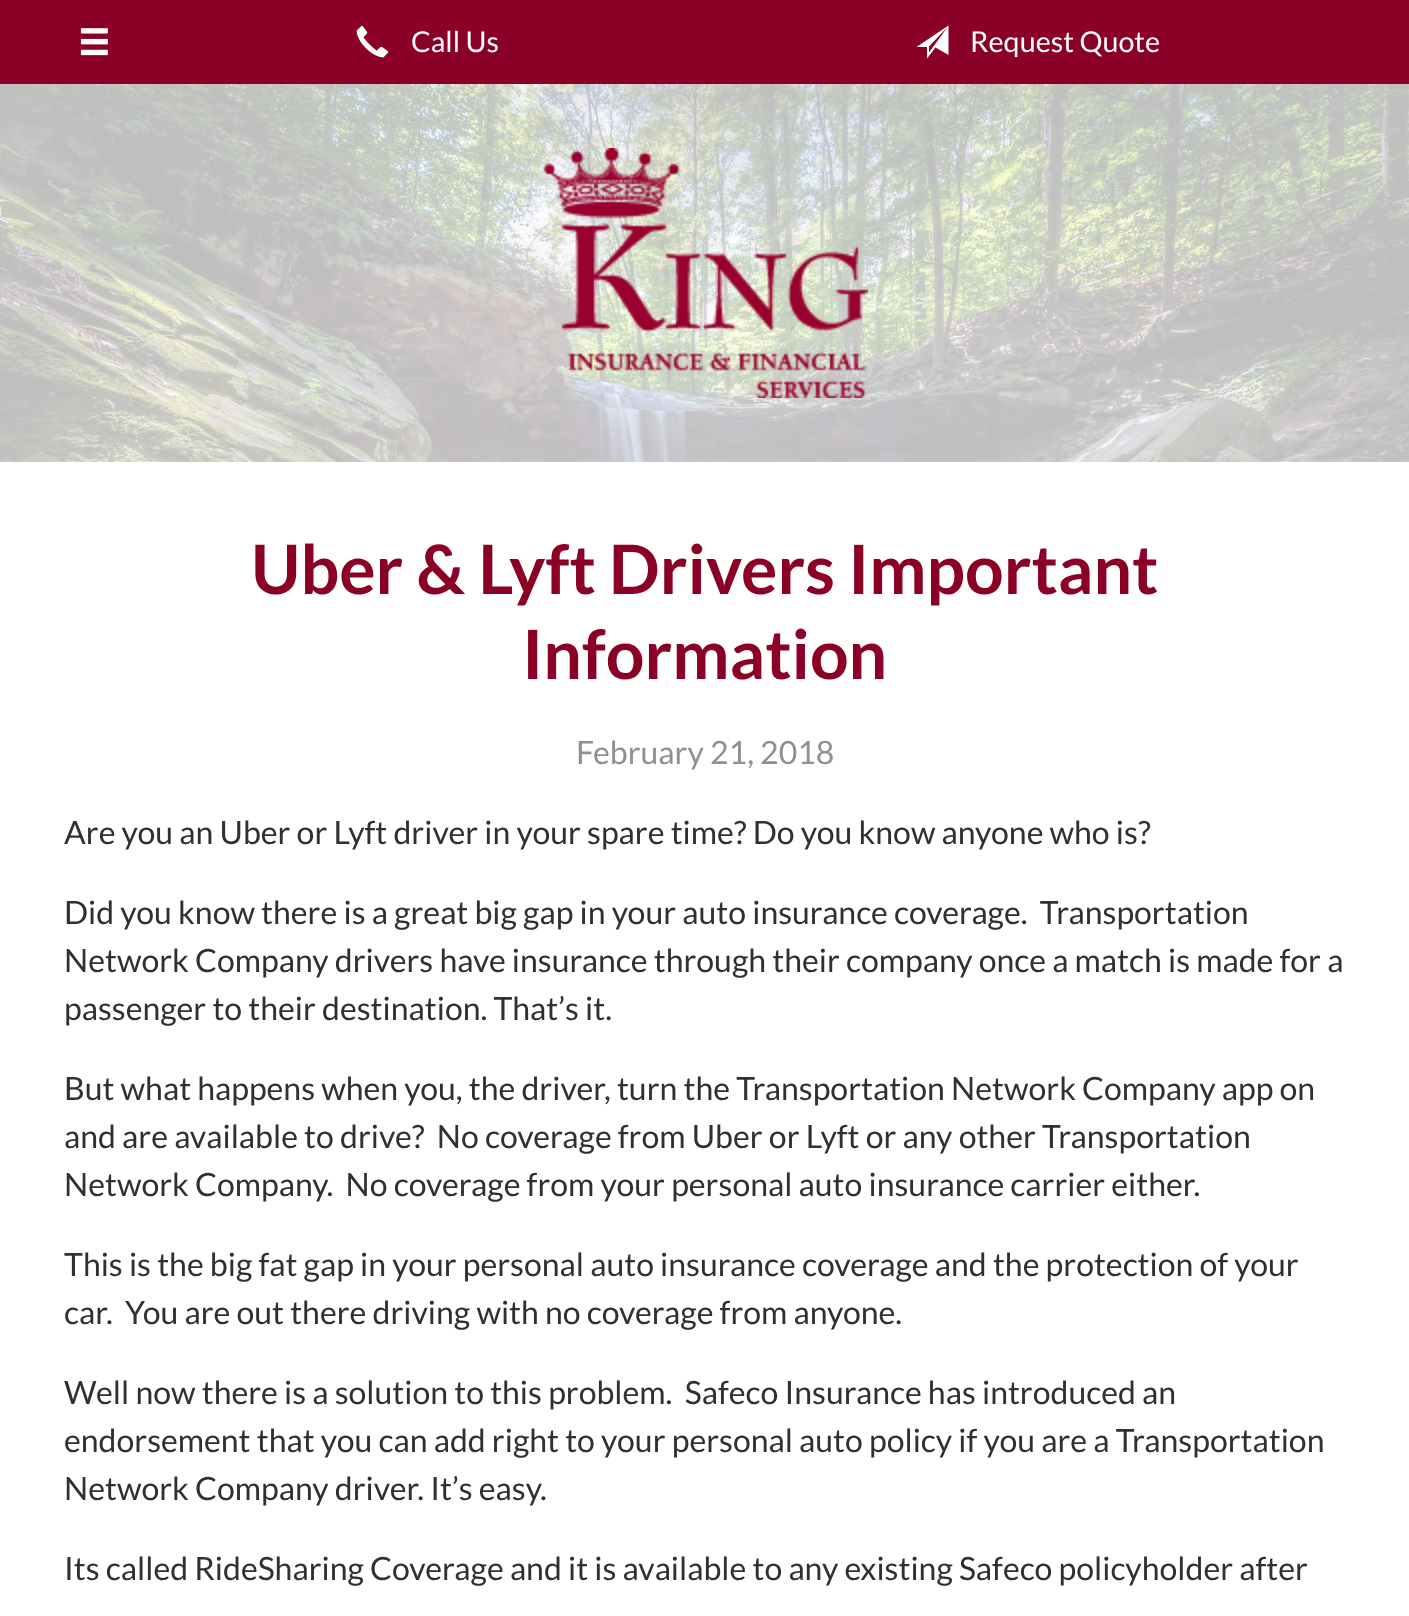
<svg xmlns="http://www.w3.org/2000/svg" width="1409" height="1616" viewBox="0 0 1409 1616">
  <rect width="100%" height="100%" fill="#ffffff"/>
  <rect x="0" y="0" width="1409" height="84" fill="#8b0027"/>
  <image x="80" y="28" width="28" height="28" href="img1.png"/>
  <image x="356" y="25" width="33" height="33" href="img2.png"/>
  <text x="411" y="52" font-family="Lato" font-size="28.75" fill="#ffffff">Call Us</text>
  <path d="M916.5 47H927V58.5L935.5 47.5L948.5 55V25.5ZM929 52.5V46.5L947.5 27Z" fill="#ffffff"/>
  <text x="970" y="52" font-family="Lato" font-size="28.75" fill="#ffffff">Request Quote</text>
  <image x="0" y="84" width="1409" height="378" href="img3.png"/>
  <rect x="0" y="84" width="1409" height="378" fill="#ffffff" fill-opacity="0.75"/>
  <image x="543" y="148" width="325" height="250" href="img4.png"/>
  <text x="251" y="594" font-family="Lato" font-size="68" font-weight="bold" fill="#8b0027">Uber &amp; Lyft Drivers Important</text>
  <text x="522" y="679" font-family="Lato" font-size="68" font-weight="bold" fill="#8b0027">Information</text>
  <text x="576" y="764" font-family="Lato" font-size="32" fill="#909090">February 21, 2018</text>
  <text x="64" y="844" font-family="Lato" font-size="32" fill="#303030">Are you an Uber or Lyft driver in your spare time? Do you know anyone who is?</text>
  <text x="64" y="924" font-family="Lato" font-size="32" fill="#303030" xml:space="preserve">Did you know there is a great big gap in your auto insurance coverage.  Transportation</text>
  <text x="64" y="972" font-family="Lato" font-size="32" fill="#303030">Network Company drivers have insurance through their company once a match is made for a</text>
  <text x="64" y="1020" font-family="Lato" font-size="32" fill="#303030">passenger to their destination. That’s it.</text>
  <text x="64" y="1100" font-family="Lato" font-size="32" fill="#303030">But what happens when you, the driver, turn the Transportation Network Company app on</text>
  <text x="64" y="1148" font-family="Lato" font-size="32" fill="#303030" xml:space="preserve">and are available to drive?  No coverage from Uber or Lyft or any other Transportation</text>
  <text x="64" y="1196" font-family="Lato" font-size="32" fill="#303030" xml:space="preserve">Network Company.  No coverage from your personal auto insurance carrier either.</text>
  <text x="64" y="1276" font-family="Lato" font-size="32" fill="#303030">This is the big fat gap in your personal auto insurance coverage and the protection of your</text>
  <text x="64" y="1324" font-family="Lato" font-size="32" fill="#303030" xml:space="preserve">car.  You are out there driving with no coverage from anyone.</text>
  <text x="64" y="1404" font-family="Lato" font-size="32" fill="#303030" xml:space="preserve">Well now there is a solution to this problem.  Safeco Insurance has introduced an</text>
  <text x="64" y="1452" font-family="Lato" font-size="32" fill="#303030">endorsement that you can add right to your personal auto policy if you are a Transportation</text>
  <text x="64" y="1500" font-family="Lato" font-size="32" fill="#303030">Network Company driver. It’s easy.</text>
  <text x="64" y="1580" font-family="Lato" font-size="32" fill="#303030">Its called RideSharing Coverage and it is available to any existing Safeco policyholder after</text>
</svg>
